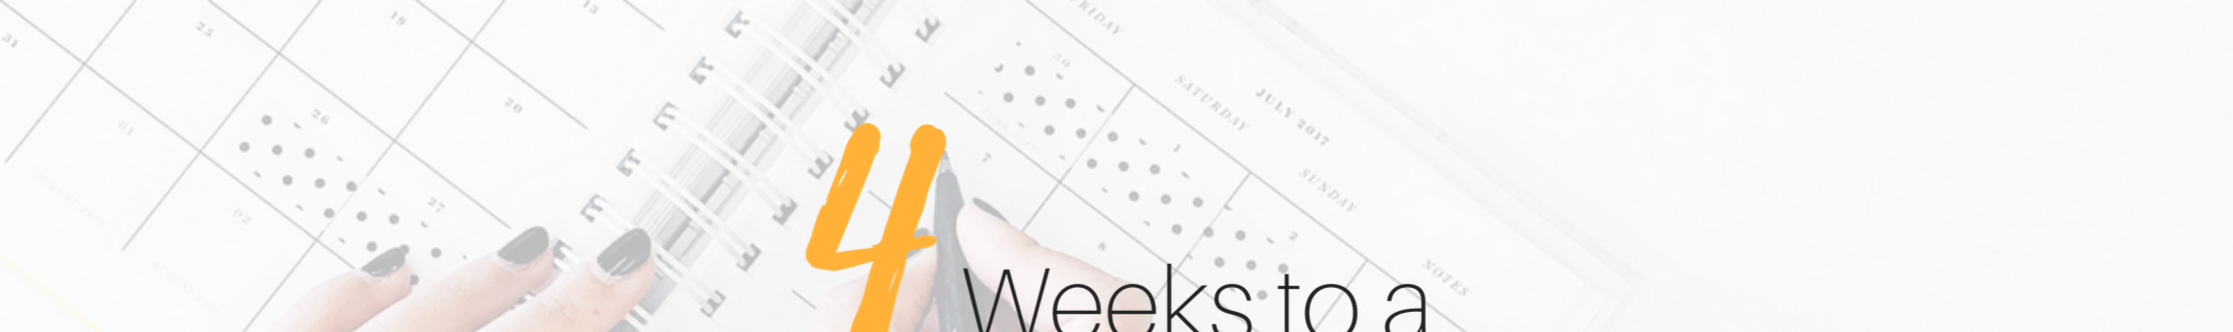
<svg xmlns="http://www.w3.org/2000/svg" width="2233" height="332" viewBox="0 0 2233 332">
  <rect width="100%" height="100%" fill="#ffffff"/>
  <image x="0" y="0" width="2233" height="332" href="img1.png"/>
  <image x="805" y="122" width="622" height="210" href="img2.png"/>
</svg>
